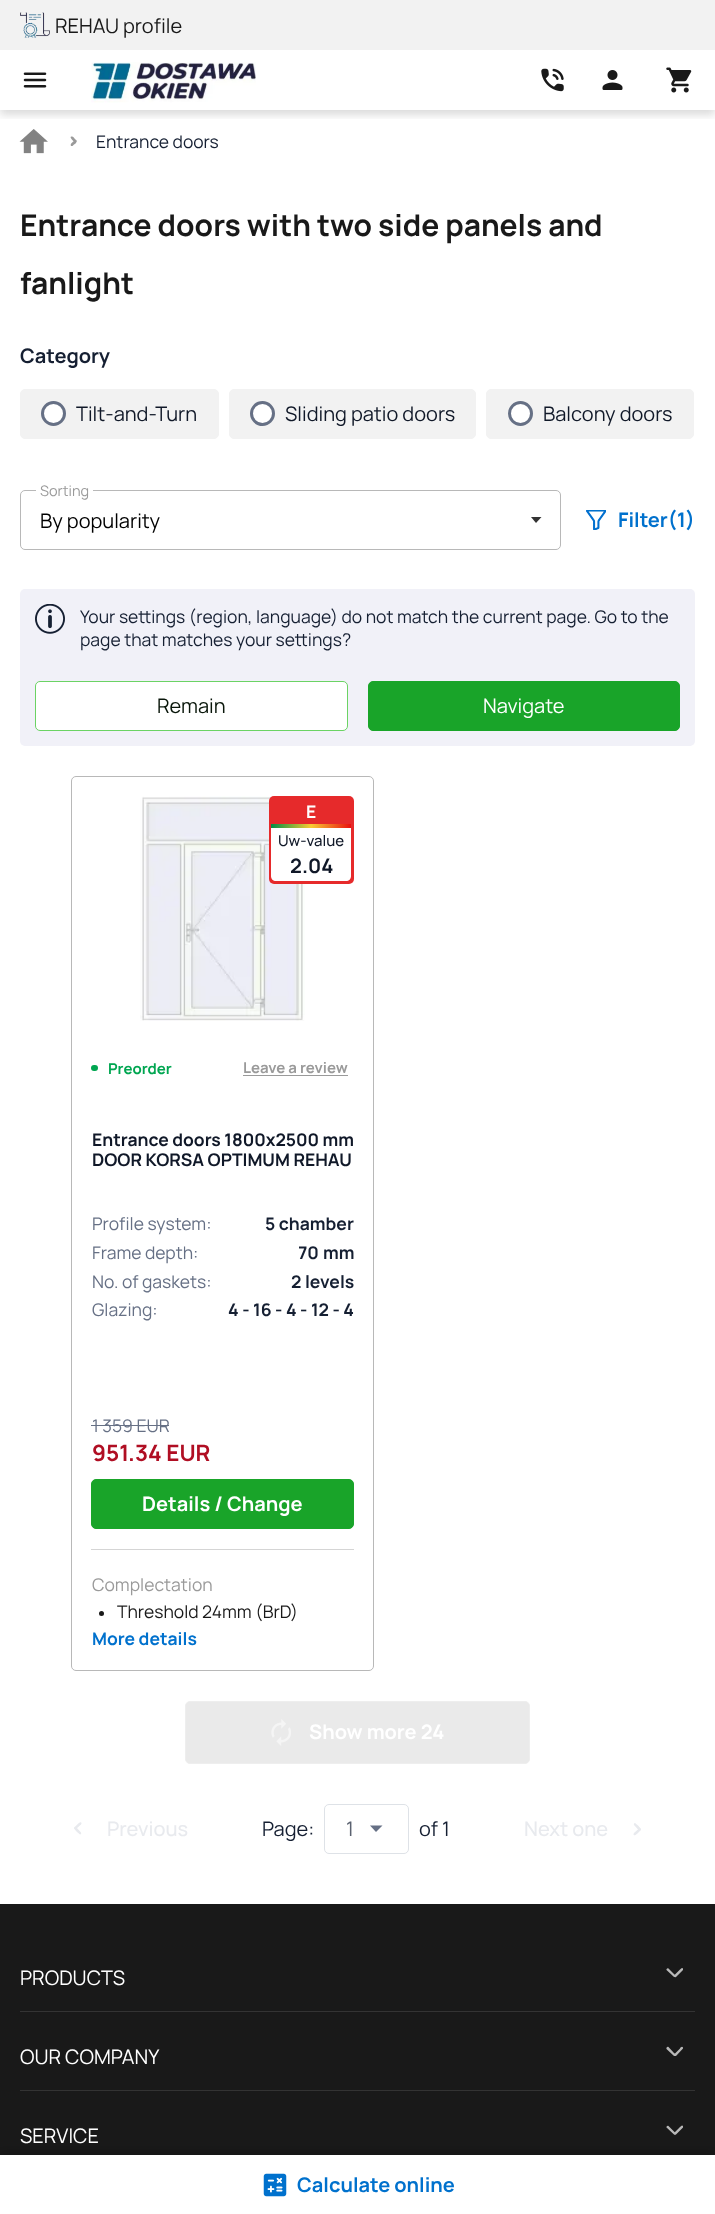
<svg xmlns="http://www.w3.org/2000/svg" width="715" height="2214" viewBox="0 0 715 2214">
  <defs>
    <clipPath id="clip1"><rect x="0" y="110" width="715" height="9"/></clipPath>
    <filter id="blur1" x="-50%" y="-200%" width="200%" height="500%"><feGaussianBlur stdDeviation="4"/></filter>
    <linearGradient id="g1" gradientUnits="userSpaceOnUse" x1="271" y1="826" x2="351" y2="826"><stop offset="0" stop-color="#018e47"/><stop offset="0.5" stop-color="#f8cc33"/><stop offset="1" stop-color="#e90f0f"/></linearGradient>
    <clipPath id="clip2"><rect x="299" y="1240" width="55" height="24"/></clipPath>
  </defs>
  <rect width="100%" height="100%" fill="#ffffff"/>
  <rect x="0" y="0" width="715" height="50" fill="#f2f2f2"/>
  <image x="20" y="12" width="30" height="26" href="img1.png"/>
  <text x="55" y="33" font-family="Manrope" font-size="20" fill="#191919">REHAU profile</text>
  <g clip-path="url(#clip1)">
    <rect x="0" y="55" width="715" height="60" fill="#000000" fill-opacity="0.14" filter="url(#blur1)"/>
  </g>
  <image x="23" y="72" width="24" height="16" href="img2.png"/>
  <image x="91" y="62" width="165" height="41" href="img3.png"/>
  <image x="541" y="68" width="23" height="24" href="img4.png"/>
  <image x="602" y="70" width="21" height="20" href="img5.png"/>
  <image x="666" y="67" width="26" height="26" href="img6.png"/>
  <image x="19" y="129" width="29" height="25" href="img7.png"/>
  <path d="M71 144C71.5 143.5 76 138 76.5 141C77 142.5 75 144 74 144.5L72.5 146C71 146.5 70 145 71 144Z" fill="#9a9a9a"/>
  <path d="M74.5 142C74 141.5 68.5 137 71.5 136.5C73 136 74.5 138.5 75 139L76.5 140.5C77 142 75.5 143 74.5 142Z" fill="#9a9a9a"/>
  <text x="96" y="148" font-family="Manrope" font-size="17.5" fill="#151f32">Entrance doors</text>
  <text x="20" y="236" font-family="Manrope" font-size="30" font-weight="bold" fill="#191919">Entrance doors with two side panels and</text>
  <text x="20" y="294" font-family="Manrope" font-size="30" font-weight="bold" fill="#191919">fanlight</text>
  <rect x="0" y="1904" width="715" height="251" fill="#191919"/>
  <rect x="0" y="2150" width="715" height="60" fill="#000000" fill-opacity="0.14" filter="url(#blur1)"/>
  <rect x="0" y="2155" width="715" height="59" fill="#ffffff"/>
  <image x="263" y="2173" width="24" height="24" href="img8.png"/>
  <text x="297" y="2192" font-family="Manrope" font-size="20" font-weight="bold" fill="#0071cd">Calculate online</text>
  <text x="20" y="363" font-family="Manrope" font-size="20" font-weight="bold" fill="#151f32">Category</text>
  <rect x="20.5" y="389.5" width="198" height="49" rx="4.5" fill="#f2f2f2" stroke="#f2f2f2"/>
  <circle cx="53.5" cy="413.5" r="11" fill="#ffffff" stroke="#667085" stroke-width="3"/>
  <text x="76" y="421" font-family="Manrope" font-size="20" fill="#101828">Tilt-and-Turn</text>
  <rect x="229.5" y="389.5" width="246" height="49" rx="4.5" fill="#f2f2f2" stroke="#f2f2f2"/>
  <circle cx="262.5" cy="413.5" r="11" fill="#ffffff" stroke="#667085" stroke-width="3"/>
  <text x="285" y="421" font-family="Manrope" font-size="20" fill="#101828">Sliding patio doors</text>
  <rect x="486.5" y="389.5" width="207" height="49" rx="4.5" fill="#f2f2f2" stroke="#f2f2f2"/>
  <circle cx="520.5" cy="413.5" r="11" fill="#ffffff" stroke="#667085" stroke-width="3"/>
  <text x="543" y="421" font-family="Manrope" font-size="20" fill="#101828">Balcony doors</text>
  <rect x="20.5" y="490.5" width="540" height="59" rx="4.5" fill="none" stroke="#b8b8b8"/>
  <rect x="36" y="490" width="57" height="1" fill="#ffffff"/>
  <text x="40" y="496" font-family="Manrope" font-size="14.5" fill="#9a9a9a">Sorting</text>
  <text x="40" y="528" font-family="Manrope" font-size="20" fill="#000000">By popularity</text>
  <path d="M531 517L536 523L541.5 517Z" fill="#333333"/>
  <image x="586" y="510" width="20" height="20" href="img9.png"/>
  <text x="618" y="527" font-family="Manrope" font-size="20" font-weight="bold" fill="#0071cd">Filter(1)</text>
  <rect x="20" y="589" width="675" height="157" rx="5" fill="#f1f1f8"/>
  <image x="35" y="604" width="30" height="30" href="img10.png"/>
  <text x="80" y="623" font-family="Manrope" font-size="17.5" fill="#151f32">Your settings (region, language) do not match the current page. Go to the</text>
  <text x="80" y="646" font-family="Manrope" font-size="17.5" fill="#151f32">page that matches your settings?</text>
  <rect x="35.5" y="681.5" width="312" height="49" rx="4.5" fill="#ffffff" stroke="#6bd364"/>
  <text x="157" y="713" font-family="Manrope" font-size="20" fill="#09160a">Remain</text>
  <rect x="368.5" y="681.5" width="311" height="49" rx="4.5" fill="#19a429" stroke="#19a529"/>
  <text x="483" y="713" font-family="Manrope" font-size="20" fill="#ffffff">Navigate</text>
  <rect x="71.5" y="776.5" width="302" height="894" rx="4.5" fill="none" stroke="#b8b8b8"/>
  <image x="140" y="796" width="165" height="225" href="img11.png"/>
  <rect x="269" y="796" width="85" height="88" rx="5" fill="#e62a2b"/>
  <text x="306" y="818" font-family="Manrope" font-size="17.5" font-weight="bold" fill="#ffffff">E</text>
  <rect x="271" y="824" width="80" height="4" fill="url(#g1)"/>
  <path d="M271 828H351V876C351 879 349 881 346 881H276C273 881 271 879 271 876Z" fill="#ffffff"/>
  <text x="278" y="846" font-family="Manrope" font-size="15" font-weight="500" fill="#101828">Uw-value</text>
  <text x="290" y="873" font-family="Manrope" font-size="20" font-weight="bold" fill="#101828">2.04</text>
  <rect x="91" y="1065" width="7" height="6" rx="3" fill="#00a651"/>
  <text x="108" y="1074" font-family="Manrope" font-size="15" font-weight="bold" fill="#00a651">Preorder</text>
  <text x="243" y="1073" font-family="Manrope" font-size="15" font-weight="bold" fill="#9a9a9a">Leave a review</text>
  <rect x="243" y="1075" width="105" height="1" fill="#9a9a9a"/>
  <text x="92" y="1146" font-family="Manrope" font-size="17.5" font-weight="bold" fill="#101828">Entrance doors 1800x2500 mm</text>
  <text x="92" y="1166" font-family="Manrope" font-size="17.5" font-weight="bold" fill="#101828">DOOR KORSA OPTIMUM REHAU</text>
  <text x="92" y="1230" font-family="Manrope" font-size="17.5" fill="#667085">Profile system:</text>
  <text x="265" y="1230" font-family="Manrope" font-size="17.5" font-weight="bold" fill="#151f32">5 chamber</text>
  <text x="92" y="1259" font-family="Manrope" font-size="17.5" fill="#667085">Frame depth:</text>
  <g clip-path="url(#clip2)">
    <text x="298" y="1259" font-family="Manrope" font-size="17.5" font-weight="bold" fill="#151f32">70</text>
  </g>
  <text x="323" y="1259" font-family="Manrope" font-size="17.5" font-weight="bold" fill="#151f32">mm</text>
  <text x="92" y="1288" font-family="Manrope" font-size="17.5" fill="#667085">No. of gaskets:</text>
  <text x="291" y="1288" font-family="Manrope" font-size="17.5" font-weight="bold" fill="#151f32">2 levels</text>
  <text x="92" y="1316" font-family="Manrope" font-size="17.5" fill="#667085">Glazing:</text>
  <text x="228" y="1316" font-family="Manrope" font-size="17.5" font-weight="bold" fill="#151f32">4 - 16 - 4 - 12 - 4</text>
  <text x="92" y="1432" font-family="Manrope" font-size="17.5" fill="#667085">1 359 EUR</text>
  <rect x="91" y="1425" width="78" height="1" fill="#667085"/>
  <text x="92" y="1461" font-family="Manrope" font-size="22.5" font-weight="bold" fill="#b00e23">951.34 EUR</text>
  <rect x="91.5" y="1479.5" width="262" height="49" rx="4.5" fill="#19a429" stroke="#19a529"/>
  <text x="142" y="1511" font-family="Manrope" font-size="20" font-weight="bold" fill="#ffffff">Details / Change</text>
  <rect x="91" y="1549" width="263" height="1" fill="#d5d5d5"/>
  <text x="92" y="1591" font-family="Manrope" font-size="17.5" fill="#9a9a9a">Complectation</text>
  <circle cx="101.5" cy="1613.5" r="2.5" fill="#191919"/>
  <text x="117" y="1618" font-family="Manrope" font-size="17.5" fill="#191919">Threshold 24mm (BrD)</text>
  <text x="92" y="1645" font-family="Manrope" font-size="17.5" font-weight="bold" fill="#0071cd">More details</text>
  <rect x="185.5" y="1701.5" width="344" height="62" rx="4.5" fill="#eaeaea" stroke="#eeeeee"/>
  <image x="271" y="1719" width="20" height="27" href="img12.png"/>
  <text x="309" y="1739" font-family="Manrope" font-size="20" font-weight="bold" fill="#ffffff">Show more 24</text>
  <path d="M81 1824.5L76 1829C75 1829.5 74 1829 74 1828C74.5 1827 81.5 1819 81.5 1823.5Z" fill="#e8eaee"/>
  <path d="M76.5 1827.5L81 1832.5C81.5 1833.5 81 1834.5 80 1834.5C79 1834 71 1827 75.5 1827Z" fill="#e8eaee"/>
  <text x="107" y="1836" font-family="Manrope" font-size="20" font-weight="500" fill="#e8eaee">Previous</text>
  <text x="262" y="1836" font-family="Manrope" font-size="20" fill="#151f32">Page:</text>
  <rect x="324.5" y="1804.5" width="84" height="49" rx="4.5" fill="none" stroke="#dee2e7"/>
  <text x="346" y="1836" font-family="Manrope" font-size="20" fill="#5b6270">1</text>
  <path d="M370 1825.5H382.5L376 1832Z" fill="#667085"/>
  <text x="419" y="1836" font-family="Manrope" font-size="20" fill="#151f32">of 1</text>
  <text x="524" y="1836" font-family="Manrope" font-size="20" font-weight="500" fill="#e8eaee">Next one</text>
  <path d="M634 1833L639 1828.5C640 1828 641 1828.5 641 1829.5C640.5 1830.5 633.5 1838.5 633.5 1834Z" fill="#e8eaee"/>
  <path d="M638.5 1830L634 1825C633.5 1824 634 1823 635 1823C636 1823.5 644 1830.5 639.5 1830.5Z" fill="#e8eaee"/>
  <rect x="20" y="2011" width="675" height="1" fill="#333333"/>
  <text x="20" y="1985" font-family="Manrope" font-size="20" fill="#ffffff">PRODUCTS</text>
  <path d="M668.5 1968.5L674 1974C675 1975 676.5 1976 675 1977H674L666.5 1970C666 1969 667.5 1967.5 668.5 1968.5Z" fill="#b8b8b8"/>
  <path d="M674.5 1975L680 1969.5C680.5 1969 682 1967 683 1968.5V1970L676 1977C674.5 1978 673 1976 674.5 1975Z" fill="#b8b8b8"/>
  <rect x="20" y="2090" width="675" height="1" fill="#333333"/>
  <text x="20" y="2064" font-family="Manrope" font-size="20" fill="#ffffff">OUR COMPANY</text>
  <path d="M668.5 2047L674 2053C675 2053.5 676.5 2055 675 2056H674L666.5 2049C666 2047.5 667.5 2046 668.5 2047Z" fill="#b8b8b8"/>
  <path d="M674.5 2054L680 2048.5C680.5 2047.5 682 2046 683 2047.5V2048.5L676 2056C674.5 2056.5 673 2055 674.5 2054Z" fill="#b8b8b8"/>
  <text x="20" y="2143" font-family="Manrope" font-size="20" fill="#ffffff">SERVICE</text>
  <path d="M668.5 2126L674 2131.5C675 2132.5 676.5 2133.5 675 2134.5H674L666.5 2127.5C666 2126.5 667.5 2125 668.5 2126Z" fill="#b8b8b8"/>
  <path d="M674.5 2132.5L680 2127C680.5 2126.5 682 2124.5 683 2126V2127.5L676 2134.5C674.5 2135.5 673 2133.5 674.5 2132.5Z" fill="#b8b8b8"/>
</svg>
